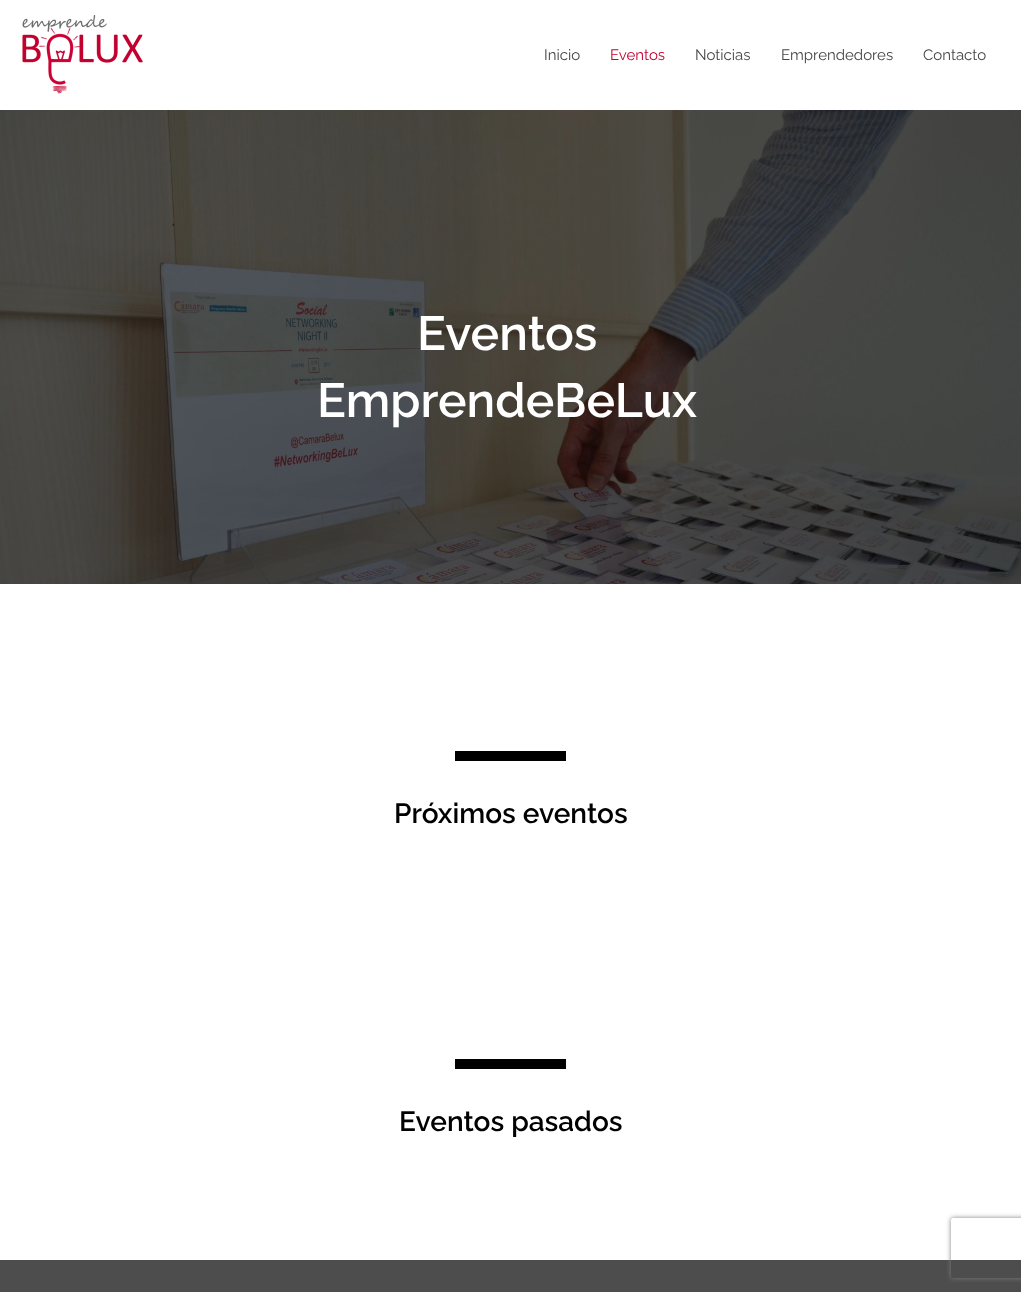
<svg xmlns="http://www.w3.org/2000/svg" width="1021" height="1292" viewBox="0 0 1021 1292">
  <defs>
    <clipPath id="clip1"><path d="M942 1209H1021V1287H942ZM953 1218H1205C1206 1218 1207 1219 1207 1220V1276C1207 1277 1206 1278 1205 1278H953C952 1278 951 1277 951 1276V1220C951 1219 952 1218 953 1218Z" clip-rule="evenodd"/></clipPath>
    <filter id="blur1" x="-50%" y="-200%" width="200%" height="500%"><feGaussianBlur stdDeviation="2.5"/></filter>
  </defs>
  <rect width="100%" height="100%" fill="#ffffff"/>
  <image x="22" y="15" width="121" height="79" href="img1.png"/>
  <text x="544" y="60" font-family="Raleway" font-size="15" fill="#464646">Inicio</text>
  <text x="610" y="60" font-family="Raleway" font-size="15" fill="#c2002f">Eventos</text>
  <text x="695" y="60" font-family="Raleway" font-size="15" fill="#464646">Noticias</text>
  <text x="781" y="60" font-family="Raleway" font-size="15" fill="#464646">Emprendedores</text>
  <text x="923" y="60" font-family="Raleway" font-size="15" fill="#464646">Contacto</text>
  <image x="0" y="110" width="1021" height="474" href="img2.png"/>
  <text x="417" y="350" font-family="Raleway" font-size="48" font-weight="600" fill="#ffffff">Eventos</text>
  <text x="317" y="417" font-family="Raleway" font-size="48" font-weight="600" fill="#ffffff">EmprendeBeLux</text>
  <rect x="455" y="751" width="111" height="10" fill="#000000"/>
  <text x="394" y="823" font-family="Raleway" font-size="28" font-weight="600" fill="#000000">Próximos eventos</text>
  <rect x="455" y="1059" width="111" height="10" fill="#000000"/>
  <text x="399" y="1131" font-family="Raleway" font-size="28" font-weight="600" fill="#000000">Eventos pasados</text>
  <rect x="0" y="1260" width="1021" height="32" fill="#4d4d4d"/>
  <g clip-path="url(#clip1)">
    <rect x="951" y="1218" width="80" height="60" rx="2" fill="#808080" filter="url(#blur1)"/>
  </g>
</svg>
